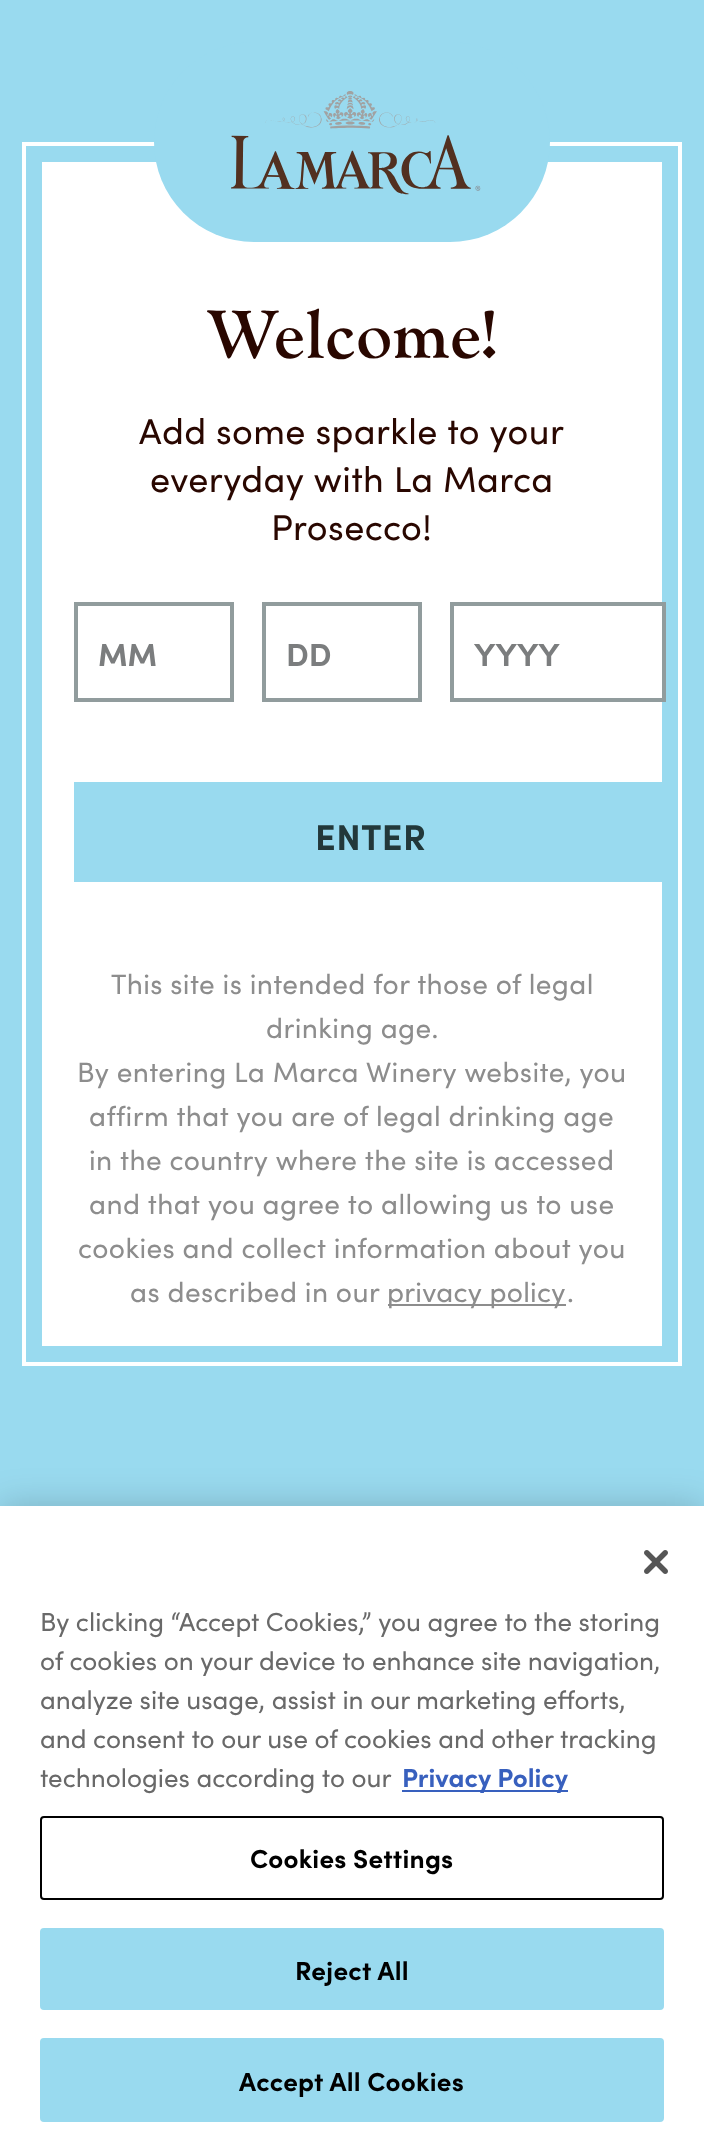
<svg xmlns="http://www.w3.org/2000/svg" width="704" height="2149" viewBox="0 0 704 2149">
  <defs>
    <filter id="blur1" x="-50%" y="-200%" width="200%" height="500%"><feGaussianBlur stdDeviation="18"/></filter>
  </defs>
  <rect width="100%" height="100%" fill="#99daef"/>
  <rect x="42" y="162" width="620" height="1184" fill="#ffffff"/>
  <rect x="76" y="604" width="156" height="96" fill="none" stroke="#919c9d" stroke-width="4"/>
  <rect x="264" y="604" width="156" height="96" fill="none" stroke="#919c9d" stroke-width="4"/>
  <rect x="452" y="604" width="212" height="96" fill="none" stroke="#919c9d" stroke-width="4"/>
  <rect x="388" y="1304" width="178" height="2" fill="#8d8d8d"/>
  <rect x="24" y="144" width="656" height="1220" fill="none" stroke="#ffffff" stroke-width="4"/>
  <rect x="154" y="42" width="396" height="200" rx="100" fill="#99daef"/>
  <image x="231" y="91" width="250" height="104" href="img1.png"/>
  <text x="206" y="358" font-family="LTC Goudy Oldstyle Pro" font-size="68" font-weight="bold" letter-spacing="1" fill="#290700">Welcome!</text>
  <text x="139" y="444" font-family="Sofia" font-size="36" letter-spacing="0.4" fill="#290700">Add some sparkle to your</text>
  <text x="150" y="492" font-family="Sofia" font-size="36" letter-spacing="0.4" fill="#290700">everyday with La Marca</text>
  <text x="271" y="540" font-family="Sofia" font-size="36" letter-spacing="0.4" fill="#290700">Prosecco!</text>
  <text x="98" y="666" font-family="Sofia" font-size="32" font-weight="bold" fill="#7b7d7e">MM</text>
  <text x="286" y="666" font-family="Sofia" font-size="32" font-weight="bold" fill="#7b7d7e">DD</text>
  <text x="474" y="666" font-family="Sofia" font-size="32" font-weight="bold" fill="#7b7d7e">YYYY</text>
  <rect x="74" y="782" width="588" height="100" fill="#99daef"/>
  <text x="315" y="850" font-family="Sofia" font-size="36" font-weight="bold" letter-spacing="0.5" fill="#22383a">ENTER</text>
  <text x="111" y="994" font-family="Sofia" font-size="28" letter-spacing="0.4" fill="#8d8d8d">This site is intended for those of legal</text>
  <text x="266" y="1038" font-family="Sofia" font-size="28" letter-spacing="0.4" fill="#8d8d8d">drinking age.</text>
  <text x="77" y="1082" font-family="Sofia" font-size="28" letter-spacing="0.4" fill="#8d8d8d">By entering La Marca Winery website, you</text>
  <text x="89" y="1126" font-family="Sofia" font-size="28" letter-spacing="0.4" fill="#8d8d8d">affirm that you are of legal drinking age</text>
  <text x="89" y="1170" font-family="Sofia" font-size="28" letter-spacing="0.4" fill="#8d8d8d">in the country where the site is accessed</text>
  <text x="89" y="1214" font-family="Sofia" font-size="28" letter-spacing="0.4" fill="#8d8d8d">and that you agree to allowing us to use</text>
  <text x="78" y="1258" font-family="Sofia" font-size="28" letter-spacing="0.4" fill="#8d8d8d">cookies and collect information about you</text>
  <text x="130" y="1302" font-family="Sofia" font-size="28" letter-spacing="0.4" fill="#8d8d8d">as described in our</text>
  <text x="387" y="1302" font-family="Sofia" font-size="28" letter-spacing="0.25" fill="#8d8d8d">privacy policy</text>
  <text x="567" y="1302" font-family="Sofia" font-size="28" letter-spacing="0.4" fill="#8d8d8d">.</text>
  <rect x="0" y="1506" width="704" height="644" fill="#000000" fill-opacity="0.2" filter="url(#blur1)"/>
  <rect x="0" y="1506" width="704" height="643" fill="#ffffff"/>
  <image x="644" y="1550" width="24" height="24" href="img2.png"/>
  <text x="40" y="1631" font-family="Sofia" font-size="26" fill="#696969">By clicking “Accept Cookies,” you agree to the storing</text>
  <text x="40" y="1670" font-family="Sofia" font-size="26" fill="#696969">of cookies on your device to enhance site navigation,</text>
  <text x="40" y="1709" font-family="Sofia" font-size="26" fill="#696969">analyze site usage, assist in our marketing efforts,</text>
  <text x="40" y="1748" font-family="Sofia" font-size="26" fill="#696969">and consent to our use of cookies and other tracking</text>
  <text x="40" y="1787" font-family="Sofia" font-size="26" fill="#696969">technologies according to our</text>
  <rect x="402" y="1790" width="166" height="2" fill="#3860be"/>
  <text x="402" y="1787" font-family="Sofia" font-size="26" font-weight="bold" fill="#3860be">Privacy Policy</text>
  <rect x="41" y="1817" width="622" height="82" rx="3" fill="none" stroke="#000000" stroke-width="2"/>
  <text x="250" y="1868" font-family="Sofia" font-size="26" font-weight="bold" letter-spacing="0.25" fill="#000000">Cookies Settings</text>
  <rect x="41" y="1929" width="622" height="80" rx="3" fill="#99daef" stroke="#99daef" stroke-width="2"/>
  <text x="295" y="1980" font-family="Sofia" font-size="26" font-weight="bold" letter-spacing="0.25" fill="#000000">Reject All</text>
  <rect x="41" y="2039" width="622" height="82" rx="3" fill="#99daef" stroke="#99daef" stroke-width="2"/>
  <text x="239" y="2091" font-family="Sofia" font-size="26" font-weight="bold" letter-spacing="0.25" fill="#000000">Accept All Cookies</text>
</svg>
